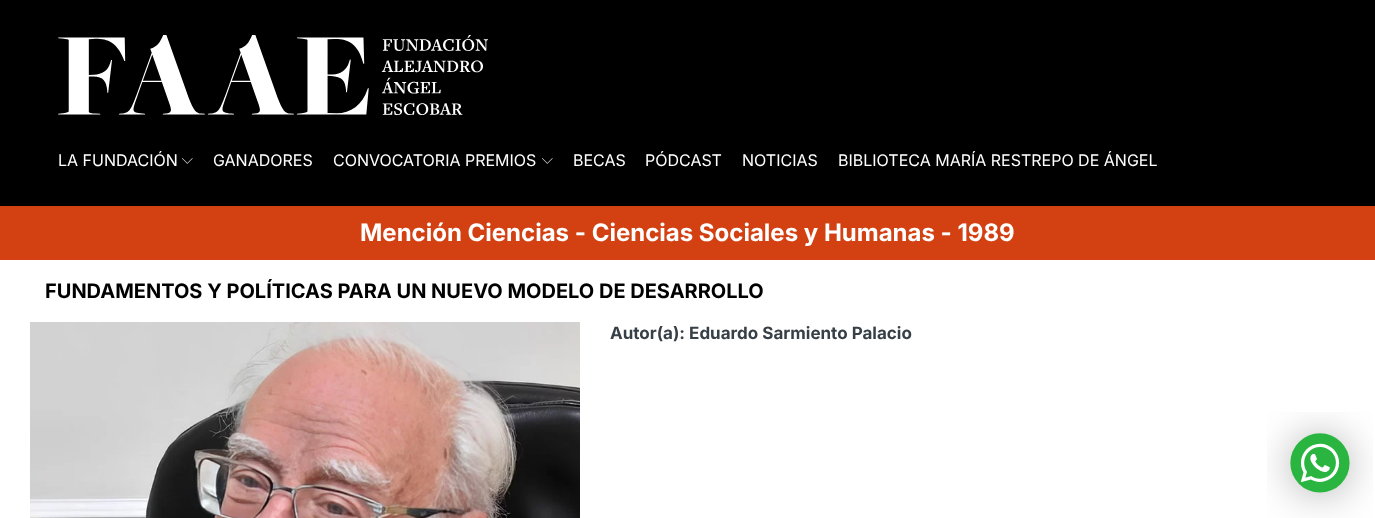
<svg xmlns="http://www.w3.org/2000/svg" width="1375" height="518" viewBox="0 0 1375 518">
  <rect width="100%" height="100%" fill="#ffffff"/>
  <rect x="0" y="0" width="1375" height="206" fill="#000000"/>
  <image x="58" y="35" width="430" height="80" href="img1.png"/>
  <text x="58" y="166" font-family="Inter" font-size="16" fill="#ffffff">LA FUNDACIÓN</text>
  <image x="182" y="158" width="11" height="6" href="img2.png"/>
  <text x="213" y="166" font-family="Inter" font-size="16" fill="#ffffff">GANADORES</text>
  <text x="333" y="166" font-family="Inter" font-size="16" fill="#ffffff">CONVOCATORIA PREMIOS</text>
  <image x="542" y="158" width="11" height="6" href="img2.png"/>
  <text x="573" y="166" font-family="Inter" font-size="16" fill="#ffffff">BECAS</text>
  <text x="645" y="166" font-family="Inter" font-size="16" fill="#ffffff">PÓDCAST</text>
  <text x="742" y="166" font-family="Inter" font-size="16" fill="#ffffff">NOTICIAS</text>
  <text x="838" y="166" font-family="Inter" font-size="16" fill="#ffffff">BIBLIOTECA MARÍA RESTREPO DE ÁNGEL</text>
  <rect x="0" y="206" width="1375" height="54" fill="#d34113"/>
  <text x="360" y="241" font-family="Inter" font-size="24" font-weight="bold" fill="#ffffff">Mención Ciencias - Ciencias Sociales y Humanas - 1989</text>
  <text x="45" y="298" font-family="Inter" font-size="20" font-weight="bold" fill="#000000">FUNDAMENTOS Y POLÍTICAS PARA UN NUEVO MODELO DE DESARROLLO</text>
  <image x="30" y="322" width="550" height="196" href="img3.png"/>
  <text x="610" y="339" font-family="Inter" font-size="17" font-weight="bold" fill="#374047">Autor(a): Eduardo Sarmiento Palacio</text>
  <image x="1267" y="412" width="106" height="106" href="img4.png"/>
</svg>
